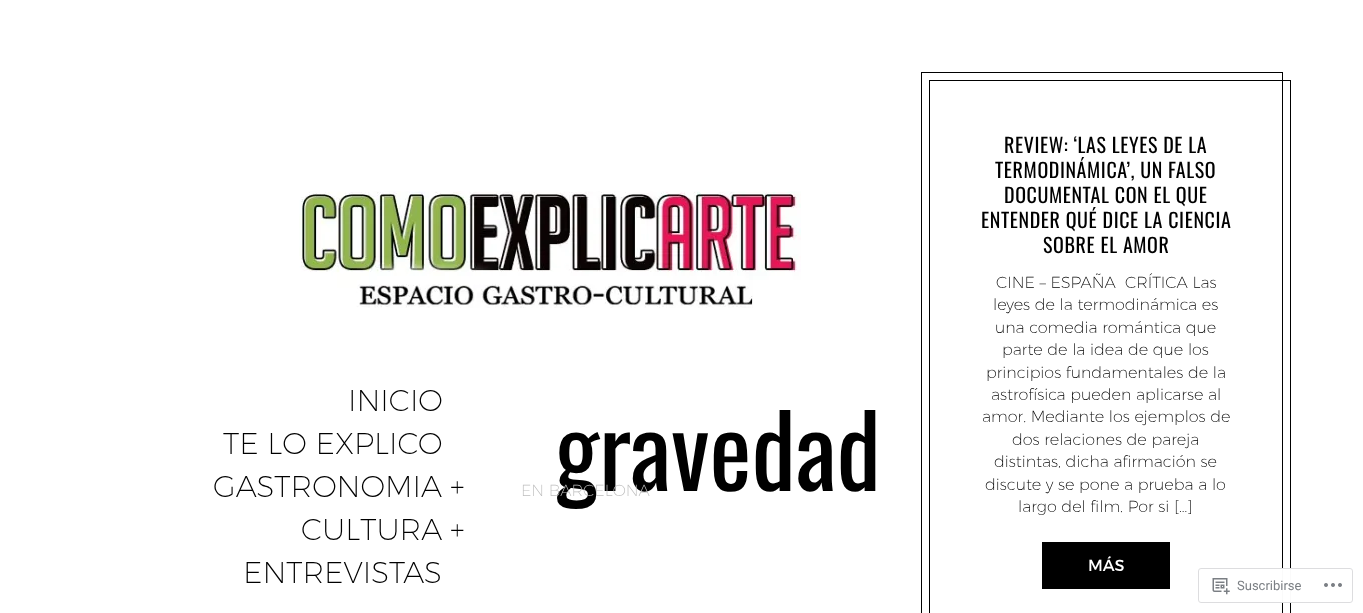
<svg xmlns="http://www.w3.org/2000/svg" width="1363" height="613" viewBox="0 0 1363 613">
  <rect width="100%" height="100%" fill="#ffffff"/>
  <image x="299" y="191" width="502" height="117" href="img1.png"/>
  <text x="348" y="411" font-family="Montserrat" font-size="30" font-weight="200" fill="#000000">INICIO</text>
  <text x="223" y="454" font-family="Montserrat" font-size="30" font-weight="200" fill="#000000">TE LO EXPLICO</text>
  <text x="213" y="497" font-family="Montserrat" font-size="30" font-weight="200" fill="#000000">GASTRONOMIA</text>
  <text x="450" y="497" font-family="Montserrat" font-size="30" font-weight="200" fill="#000000">+</text>
  <text x="555" y="491" font-family="Oswald" font-size="100" fill="#000000">gravedad</text>
  <text x="521" y="496" font-family="Montserrat" font-size="16" font-weight="200" fill="#bebebe">EN BARCELONA</text>
  <text x="301" y="540" font-family="Montserrat" font-size="30" font-weight="200" fill="#000000">CULTURA</text>
  <text x="450" y="540" font-family="Montserrat" font-size="30" font-weight="200" fill="#000000">+</text>
  <text x="243" y="583" font-family="Montserrat" font-size="30" font-weight="200" fill="#000000">ENTREVISTAS</text>
  <rect x="1042" y="542" width="128" height="47" fill="#000000"/>
  <rect x="929.5" y="80.5" width="361" height="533" fill="none" stroke="#000000"/>
  <rect x="921.5" y="72.5" width="361" height="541" fill="none" stroke="#000000"/>
  <text x="1004" y="153" font-family="Oswald" font-size="20" letter-spacing="0.6" fill="#000000">REVIEW: ‘LAS LEYES DE LA</text>
  <text x="995" y="178" font-family="Oswald" font-size="20" letter-spacing="0.6" fill="#000000">TERMODINÁMICA’, UN FALSO</text>
  <text x="1004" y="203" font-family="Oswald" font-size="20" letter-spacing="0.6" fill="#000000">DOCUMENTAL CON EL QUE</text>
  <text x="981" y="228" font-family="Oswald" font-size="20" letter-spacing="0.6" fill="#000000">ENTENDER QUÉ DICE LA CIENCIA</text>
  <text x="1043" y="253" font-family="Oswald" font-size="20" letter-spacing="0.6" fill="#000000">SOBRE EL AMOR</text>
  <text x="996" y="288" font-family="Montserrat" font-size="16" font-weight="200" fill="#000000" xml:space="preserve">CINE – ESPAÑA  CRÍTICA Las</text>
  <text x="993" y="310" font-family="Montserrat" font-size="16" font-weight="200" fill="#000000">leyes de la termodinámica es</text>
  <text x="995" y="333" font-family="Montserrat" font-size="16" font-weight="200" fill="#000000">una comedia romántica que</text>
  <text x="1002" y="355" font-family="Montserrat" font-size="16" font-weight="200" fill="#000000">parte de la idea de que los</text>
  <text x="986" y="378" font-family="Montserrat" font-size="16" font-weight="200" fill="#000000">principios fundamentales de la</text>
  <text x="991" y="400" font-family="Montserrat" font-size="16" font-weight="200" fill="#000000">astrofísica pueden aplicarse al</text>
  <text x="982" y="422" font-family="Montserrat" font-size="16" font-weight="200" fill="#000000">amor. Mediante los ejemplos de</text>
  <text x="1012" y="445" font-family="Montserrat" font-size="16" font-weight="200" fill="#000000">dos relaciones de pareja</text>
  <text x="994" y="467" font-family="Montserrat" font-size="16" font-weight="200" fill="#000000">distintas, dicha afirmación se</text>
  <text x="985" y="490" font-family="Montserrat" font-size="16" font-weight="200" fill="#000000">discute y se pone a prueba a lo</text>
  <text x="1018" y="512" font-family="Montserrat" font-size="16" font-weight="200" fill="#000000">largo del film. Por si […]</text>
  <text x="1088" y="571" font-family="Montserrat" font-size="16" fill="#ffffff">MÁS</text>
  <rect x="1198" y="568" width="155" height="35" rx="3" fill="#ffffff" fill-opacity="0.98"/>
  <rect x="1198.5" y="568.5" width="154" height="34" rx="2.5" fill="none" stroke="#dcdcde" stroke-opacity="0.98"/>
  <image x="1212" y="578" width="18" height="17" href="img2.png"/>
  <text x="1237" y="590" font-family="Roboto" font-size="13" fill="#7b7f84">Suscribirse</text>
  <image x="1324" y="583" width="18" height="4" href="img3.png"/>
</svg>
